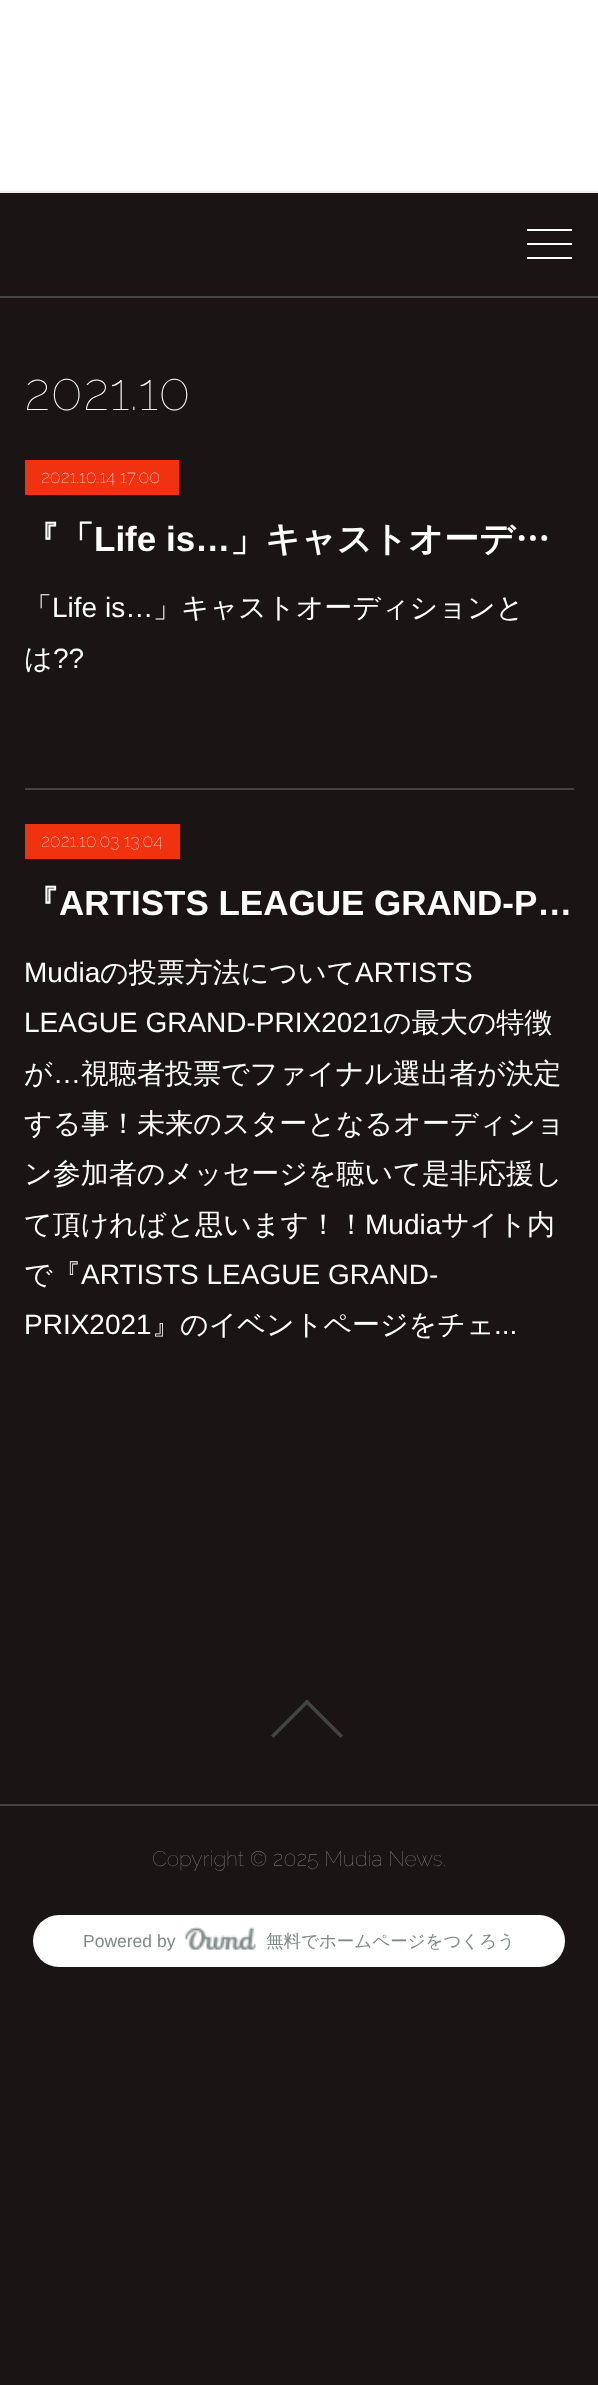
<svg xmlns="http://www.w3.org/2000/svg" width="598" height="2385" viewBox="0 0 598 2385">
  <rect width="100%" height="100%" fill="#1a1414"/>
  <rect x="0" y="0" width="598" height="191" fill="#ffffff"/>
  <rect x="0" y="191" width="598" height="2" fill="#eeeeee"/>
  <rect x="0" y="296" width="598" height="2" fill="#444444"/>
  <rect x="527" y="229" width="45" height="2" fill="#ffffff"/>
  <rect x="527" y="243" width="45" height="2" fill="#ffffff"/>
  <rect x="527" y="257" width="45" height="2" fill="#ffffff"/>
  <text x="24" y="410" font-family="Raleway" font-size="52.5" font-weight="100" fill="#ffffff">2021.10</text>
  <rect x="25" y="460" width="154" height="35" fill="#f03211"/>
  <text x="41" y="483" font-family="Raleway" font-size="17.5" font-weight="100" fill="#ffffff">2021.10.14 17:00</text>
  <text x="24" y="551" font-family="WenQuanYi Zen Hei" font-size="35" font-weight="bold" fill="#ffffff">『「</text>
  <text x="94" y="551" font-family="Liberation Sans" font-size="35" font-weight="bold" fill="#ffffff">Life is…</text>
  <text x="230" y="551" font-family="WenQuanYi Zen Hei" font-size="35" font-weight="bold" fill="#ffffff">」キャストオーデ…</text>
  <text x="24" y="617" font-family="WenQuanYi Zen Hei" font-size="28" font-weight="500" fill="#ffffff">「</text>
  <text x="52" y="617" font-family="Liberation Sans" font-size="28" fill="#ffffff">Life is…</text>
  <text x="153" y="617" font-family="WenQuanYi Zen Hei" font-size="28" font-weight="500" fill="#ffffff">」キャストオーディションと</text>
  <text x="24" y="668" font-family="WenQuanYi Zen Hei" font-size="28" font-weight="500" fill="#ffffff">は</text>
  <text x="53" y="668" font-family="Liberation Sans" font-size="28" fill="#ffffff">??</text>
  <rect x="25" y="788" width="549" height="2" fill="#444444"/>
  <rect x="25" y="824" width="155" height="35" fill="#f03211"/>
  <text x="41" y="847" font-family="Raleway" font-size="17.5" font-weight="100" fill="#ffffff">2021.10.03 13:04</text>
  <text x="24" y="915" font-family="WenQuanYi Zen Hei" font-size="35" font-weight="bold" fill="#ffffff">『</text>
  <text x="59" y="915" font-family="Liberation Sans" font-size="35" font-weight="bold" fill="#ffffff">ARTISTS LEAGUE GRAND-P…</text>
  <text x="24" y="982" font-family="Liberation Sans" font-size="28" fill="#ffffff">Mudia</text>
  <text x="100" y="982" font-family="WenQuanYi Zen Hei" font-size="28" font-weight="500" fill="#ffffff">の投票方法について</text>
  <text x="355" y="982" font-family="Liberation Sans" font-size="28" fill="#ffffff">ARTISTS</text>
  <text x="24" y="1032" font-family="Liberation Sans" font-size="28" fill="#ffffff">LEAGUE GRAND-PRIX2021</text>
  <text x="383" y="1032" font-family="WenQuanYi Zen Hei" font-size="28" font-weight="500" fill="#ffffff">の最大の特徴</text>
  <text x="24" y="1083" font-family="WenQuanYi Zen Hei" font-size="28" font-weight="500" fill="#ffffff">が</text>
  <text x="53" y="1083" font-family="Liberation Sans" font-size="28" fill="#ffffff">…</text>
  <text x="81" y="1083" font-family="WenQuanYi Zen Hei" font-size="28" font-weight="500" fill="#ffffff">視聴者投票でファイナル選出者が決定</text>
  <text x="24" y="1133" font-family="WenQuanYi Zen Hei" font-size="28" font-weight="500" fill="#ffffff">する事！未来のスターとなるオーディショ</text>
  <text x="24" y="1183" font-family="WenQuanYi Zen Hei" font-size="28" font-weight="500" fill="#ffffff">ン参加者のメッセージを聴いて是非応援し</text>
  <text x="24" y="1234" font-family="WenQuanYi Zen Hei" font-size="28" font-weight="500" fill="#ffffff">て頂ければと思います！！</text>
  <text x="365" y="1234" font-family="Liberation Sans" font-size="28" fill="#ffffff">Mudia</text>
  <text x="441" y="1234" font-family="WenQuanYi Zen Hei" font-size="28" font-weight="500" fill="#ffffff">サイト内</text>
  <text x="24" y="1284" font-family="WenQuanYi Zen Hei" font-size="28" font-weight="500" fill="#ffffff">で『</text>
  <text x="81" y="1284" font-family="Liberation Sans" font-size="28" fill="#ffffff">ARTISTS LEAGUE GRAND-</text>
  <text x="24" y="1334" font-family="Liberation Sans" font-size="28" fill="#ffffff">PRIX2021</text>
  <text x="152" y="1334" font-family="WenQuanYi Zen Hei" font-size="28" font-weight="500" fill="#ffffff">』のイベントページをチェ</text>
  <text x="494" y="1334" font-family="Liberation Sans" font-size="28" fill="#ffffff">...</text>
  <path d="M271 1735.5L307 1699.5L309.5 1702L273.5 1738Z" fill="#444444"/>
  <path d="M304.5 1702L307 1699.5L343 1735.5L340.5 1738Z" fill="#444444"/>
  <rect x="0" y="1804" width="598" height="2" fill="#444444"/>
  <text x="152" y="1866" font-family="Raleway" font-size="21" font-weight="100" fill="#8d8a8a">Copyright © 2025 Mudia News.</text>
  <rect x="33" y="1915" width="532" height="52" rx="26" fill="#ffffff"/>
  <text x="83" y="1947" font-family="Liberation Sans" font-size="17.5" fill="#7d8b88">Powered by</text>
  <image x="184" y="1926" width="73" height="25" href="img1.png"/>
  <text x="266" y="1947" font-family="WenQuanYi Zen Hei" font-size="17.5" font-weight="500" fill="#7d8b88">無料でホームページをつくろう</text>
</svg>
